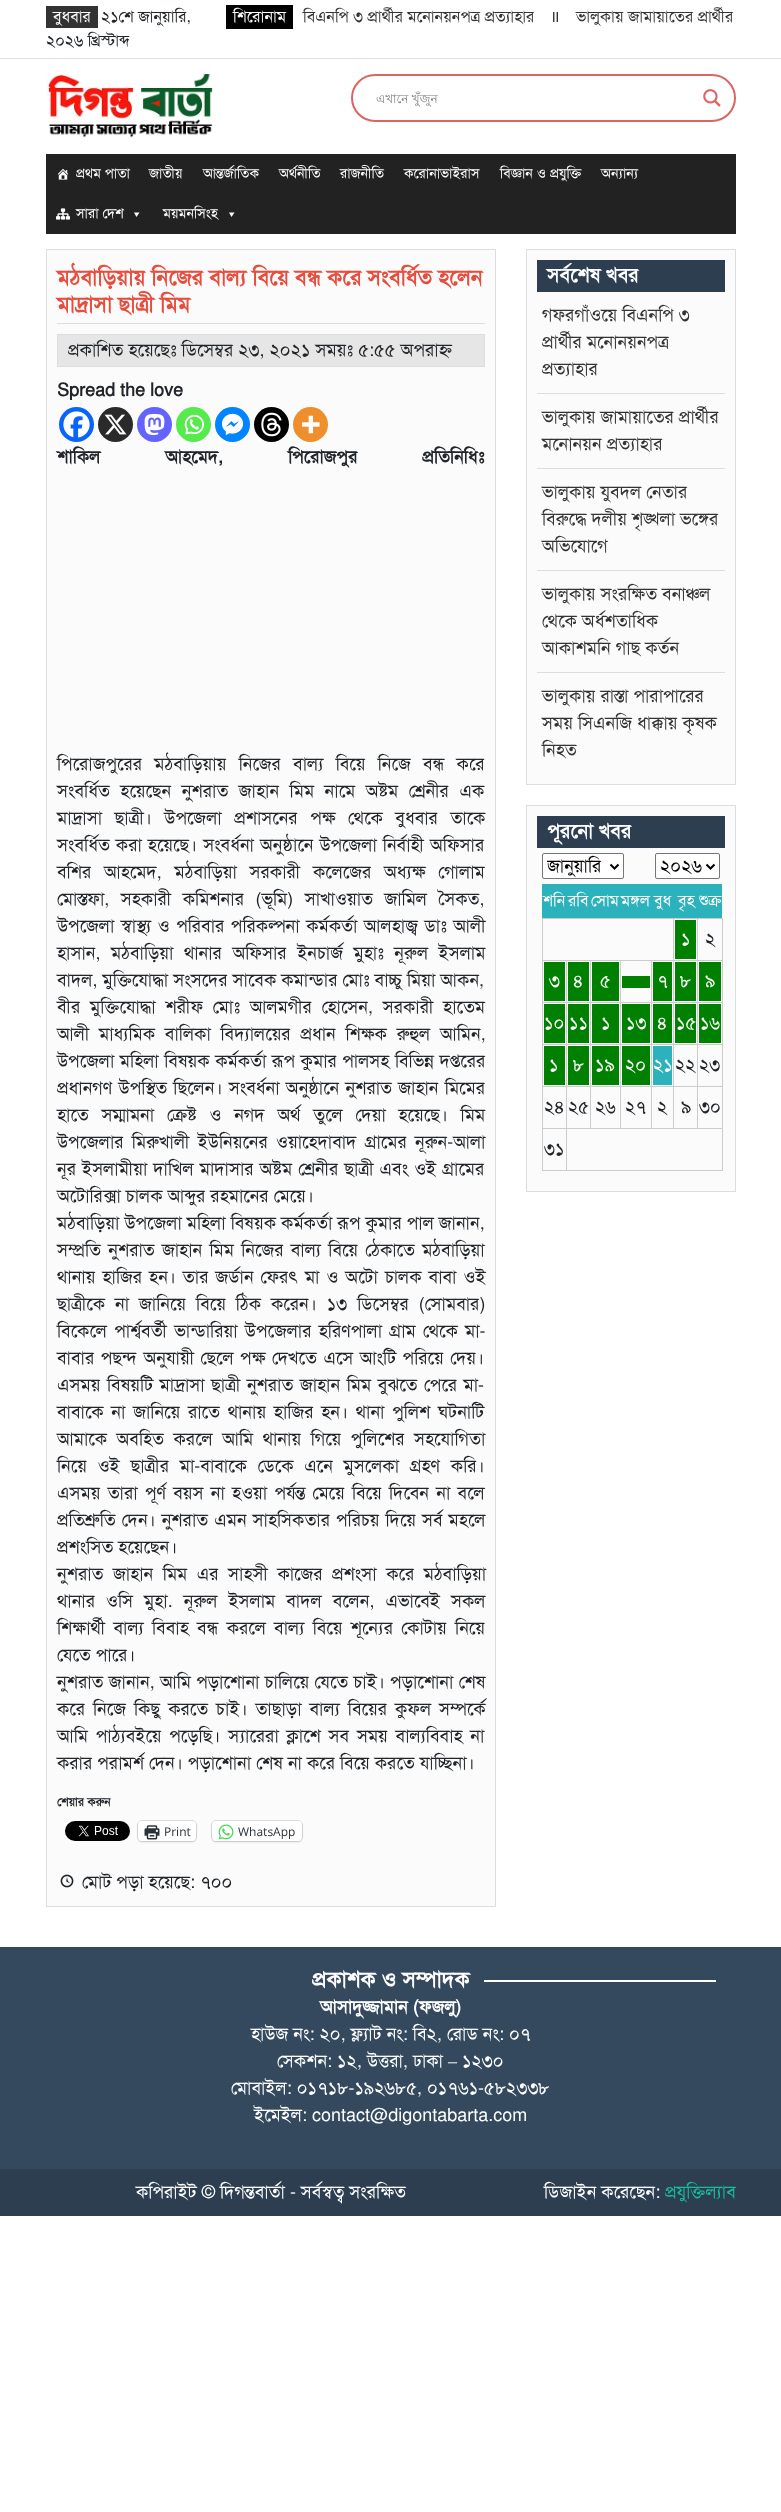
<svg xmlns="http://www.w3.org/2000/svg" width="781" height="2512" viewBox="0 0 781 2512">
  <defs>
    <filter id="blur1" x="-50%" y="-200%" width="200%" height="500%"><feGaussianBlur stdDeviation="1"/></filter>
    <clipPath id="clip1"><rect x="547" y="854" width="60" height="24"/></clipPath>
  </defs>
  <rect width="100%" height="100%" fill="#ffffff"/>
  <rect x="0" y="58" width="781" height="1" fill="#dddddd"/>
  <rect x="46" y="6" width="52" height="22" fill="#333333"/>
  <text x="53" y="22" font-family="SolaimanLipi" font-size="16" fill="#ffffff">বুধবার</text>
  <text x="101" y="22" font-family="SolaimanLipi" font-size="16" fill="#212529">২১শে জানুয়ারি,</text>
  <text x="46" y="46" font-family="SolaimanLipi" font-size="16" fill="#212529">২০২৬ খ্রিস্টাব্দ</text>
  <rect x="226" y="5" width="67" height="24" fill="#000000"/>
  <text x="233" y="22" font-family="SolaimanLipi" font-size="16" fill="#ffffff">শিরোনাম</text>
  <text x="303" y="22" font-family="SolaimanLipi" font-size="16" fill="#333333">বিএনপি ৩ প্রার্থীর মনোনয়নপত্র প্রত্যাহার</text>
  <text x="550" y="22" font-family="Noto Sans" font-size="16" fill="#212529">॥</text>
  <text x="576" y="22" font-family="SolaimanLipi" font-size="16" fill="#333333">ভালুকায় জামায়াতের প্রার্থীর</text>
  <image x="46" y="74" width="167" height="64" href="img1.png"/>
  <rect x="352" y="75" width="383" height="46" rx="23" fill="none" stroke="#de6464" stroke-width="2"/>
  <text x="376" y="103" font-family="Lohit Bengali" font-size="12" fill="#7d7d7d">এখানে খুঁজুন</text>
  <image x="703" y="89" width="18" height="18" href="img2.png"/>
  <rect x="46" y="154" width="690" height="80" fill="#222222"/>
  <image x="57" y="168" width="12" height="12" href="img3.png"/>
  <text x="76" y="178" font-family="SolaimanLipi" font-size="14" fill="#ffffff">প্রথম পাতা</text>
  <text x="149" y="178" font-family="SolaimanLipi" font-size="14" fill="#ffffff">জাতীয়</text>
  <text x="203" y="178" font-family="SolaimanLipi" font-size="14" fill="#ffffff">আন্তর্জাতিক</text>
  <text x="279" y="178" font-family="SolaimanLipi" font-size="14" fill="#ffffff">অর্থনীতি</text>
  <text x="340" y="178" font-family="SolaimanLipi" font-size="14" fill="#ffffff">রাজনীতি</text>
  <text x="404" y="178" font-family="SolaimanLipi" font-size="14" fill="#ffffff">করোনাভাইরাস</text>
  <text x="500" y="178" font-family="SolaimanLipi" font-size="14" fill="#ffffff">বিজ্ঞান ও প্রযুক্তি</text>
  <text x="601" y="178" font-family="SolaimanLipi" font-size="14" fill="#ffffff">অন্যান্য</text>
  <image x="56" y="208" width="14" height="12" href="img4.png"/>
  <text x="76" y="218" font-family="SolaimanLipi" font-size="14" fill="#ffffff">সারা দেশ</text>
  <path d="M139.5 212.5L136.5 217L134 212.5Z" fill="#ffffff"/>
  <text x="163" y="218" font-family="SolaimanLipi" font-size="14" fill="#ffffff">ময়মনসিংহ</text>
  <path d="M234.5 212.5L231.5 217L229 212.5Z" fill="#ffffff"/>
  <rect x="46.5" y="249.5" width="449" height="1657" fill="#fbfbfb" stroke="#dddddd"/>
  <rect x="57" y="323" width="428" height="1" fill="#dddddd"/>
  <text x="57" y="285" font-family="SolaimanLipi" font-size="22" font-weight="bold" fill="#e74c3c">মঠবাড়িয়ায় নিজের বাল্য বিয়ে বন্ধ করে সংবর্ধিত হলেন</text>
  <text x="57" y="312" font-family="SolaimanLipi" font-size="22" font-weight="bold" fill="#e74c3c">মাদ্রাসা ছাত্রী মিম</text>
  <rect x="57.5" y="334.5" width="427" height="32" fill="#e6e6e6" stroke="#dddddd"/>
  <text x="68" y="356" font-family="SolaimanLipi" font-size="18" fill="#212529">প্রকাশিত হয়েছেঃ ডিসেম্বর ২৩, ২০২১ সময়ঃ ৫:৫৫ অপরাহ্ণ</text>
  <text x="57" y="396" font-family="SolaimanLipi" font-size="18" font-weight="bold" fill="#212529">Spread the love</text>
  <circle cx="76.5" cy="424.5" r="17.5" fill="#0765fe"/>
  <image x="63" y="411" width="27" height="27" href="img5.png"/>
  <circle cx="115.5" cy="424.5" r="17.5" fill="#2a2a2a"/>
  <image x="104" y="414" width="23" height="21" href="img6.png"/>
  <circle cx="154.5" cy="424.5" r="17.5" fill="#6364ff"/>
  <image x="144" y="413" width="21" height="23" href="img7.png"/>
  <circle cx="193.5" cy="424.5" r="17.5" fill="#55eb4c"/>
  <image x="184" y="414" width="20" height="21" href="img8.png"/>
  <circle cx="232.5" cy="424.5" r="17.5" fill="#0084ff"/>
  <image x="221" y="413" width="23" height="23" href="img9.png"/>
  <circle cx="271.5" cy="424.5" r="17.5" fill="#000000"/>
  <image x="261" y="412" width="21" height="25" href="img10.png"/>
  <circle cx="310.5" cy="424.5" r="17.5" fill="#ee8e2d"/>
  <image x="302" y="415" width="18" height="19" href="img11.png"/>
  <text x="57" y="463" word-spacing="60" font-family="SolaimanLipi" font-size="18" font-weight="bold" fill="#212529">শাকিল আহমেদ, পিরোজপুর প্রতিনিধিঃ</text>
  <text x="57" y="770" word-spacing="7.25" font-family="SolaimanLipi" font-size="18" fill="#212529">পিরোজপুরের মঠবাড়িয়ায় নিজের বাল্য বিয়ে নিজে বন্ধ করে</text>
  <text x="57" y="797" word-spacing="5.5" font-family="SolaimanLipi" font-size="18" fill="#212529">সংবর্ধিত হয়েছেন নুশরাত জাহান মিম নামে অষ্টম শ্রেনীর এক</text>
  <text x="57" y="824" word-spacing="7.5" font-family="SolaimanLipi" font-size="18" fill="#212529">মাদ্রাসা ছাত্রী। উপজেলা প্রশাসনের পক্ষ থেকে বুধবার তাকে</text>
  <text x="57" y="851" word-spacing="1" font-family="SolaimanLipi" font-size="18" fill="#212529">সংবর্ধিত করা হয়েছে। সংবর্ধনা অনুষ্ঠানে উপজেলা নির্বাহী অফিসার</text>
  <text x="57" y="878" word-spacing="7.75" font-family="SolaimanLipi" font-size="18" fill="#212529">বশির আহমেদ, মঠবাড়িয়া সরকারী কলেজের অধ্যক্ষ গোলাম</text>
  <text x="57" y="905" word-spacing="6.5" font-family="SolaimanLipi" font-size="18" fill="#212529">মোস্তফা, সহকারী কমিশনার (ভূমি) সাখাওয়াত জামিল সৈকত,</text>
  <text x="57" y="932" word-spacing="1.5" font-family="SolaimanLipi" font-size="18" fill="#212529">উপজেলা স্বাস্থ্য ও পরিবার পরিকল্পনা কর্মকর্তা আলহাজ্ব ডাঃ আলী</text>
  <text x="57" y="959" word-spacing="5.5" font-family="SolaimanLipi" font-size="18" fill="#212529">হাসান, মঠবাড়িয়া থানার অফিসার ইনচার্জ মুহাঃ নূরুল ইসলাম</text>
  <text x="57" y="986" font-family="SolaimanLipi" font-size="18" fill="#212529">বাদল, মুক্তিযোদ্ধা সংসদের সাবেক কমান্ডার মোঃ বাচ্চু মিয়া আকন,</text>
  <text x="57" y="1013" word-spacing="4.75" font-family="SolaimanLipi" font-size="18" fill="#212529">বীর মুক্তিযোদ্ধা শরীফ মোঃ আলমগীর হোসেন, সরকারী হাতেম</text>
  <text x="57" y="1040" word-spacing="4.75" font-family="SolaimanLipi" font-size="18" fill="#212529">আলী মাধ্যমিক বালিকা বিদ্যালয়ের প্রধান শিক্ষক রুহুল আমিন,</text>
  <text x="57" y="1067" word-spacing="0.5" font-family="SolaimanLipi" font-size="18" fill="#212529">উপজেলা মহিলা বিষয়ক কর্মকর্তা রূপ কুমার পালসহ বিভিন্ন দপ্তরের</text>
  <text x="57" y="1094" word-spacing="1.25" font-family="SolaimanLipi" font-size="18" fill="#212529">প্রধানগণ উপস্থিত ছিলেন। সংবর্ধনা অনুষ্ঠানে নুশরাত জাহান মিমের</text>
  <text x="57" y="1121" word-spacing="7.75" font-family="SolaimanLipi" font-size="18" fill="#212529">হাতে সম্মামনা ক্রেষ্ট ও নগদ অর্থ তুলে দেয়া হয়েছে। মিম</text>
  <text x="57" y="1148" word-spacing="3.25" font-family="SolaimanLipi" font-size="18" fill="#212529">উপজেলার মিরুখালী ইউনিয়নের ওয়াহেদাবাদ গ্রামের নূরুন-আলা</text>
  <text x="57" y="1175" word-spacing="1" font-family="SolaimanLipi" font-size="18" fill="#212529">নূর ইসলামীয়া দাখিল মাদাসার অষ্টম শ্রেনীর ছাত্রী এবং ওই গ্রামের</text>
  <text x="57" y="1202" font-family="SolaimanLipi" font-size="18" fill="#212529">অটোরিক্সা চালক আব্দুর রহমানের মেয়ে।</text>
  <text x="57" y="1229" font-family="SolaimanLipi" font-size="18" fill="#212529">মঠবাড়িয়া উপজেলা মহিলা বিষয়ক কর্মকর্তা রূপ কুমার পাল জানান,</text>
  <text x="57" y="1256" word-spacing="2.25" font-family="SolaimanLipi" font-size="18" fill="#212529">সম্প্রতি নুশরাত জাহান মিম নিজের বাল্য বিয়ে ঠেকাতে মঠবাড়িয়া</text>
  <text x="57" y="1283" word-spacing="2" font-family="SolaimanLipi" font-size="18" fill="#212529">থানায় হাজির হন। তার জর্ডান ফেরৎ মা ও অটো চালক বাবা ওই</text>
  <text x="57" y="1310" word-spacing="5" font-family="SolaimanLipi" font-size="18" fill="#212529">ছাত্রীকে না জানিয়ে বিয়ে ঠিক করেন। ১৩ ডিসেম্বর (সোমবার)</text>
  <text x="57" y="1337" word-spacing="2.25" font-family="SolaimanLipi" font-size="18" fill="#212529">বিকেলে পার্শ্ববর্তী ভান্ডারিয়া উপজেলার হরিণপালা গ্রাম থেকে মা-</text>
  <text x="57" y="1364" word-spacing="1.5" font-family="SolaimanLipi" font-size="18" fill="#212529">বাবার পছন্দ অনুযায়ী ছেলে পক্ষ দেখতে এসে আংটি পরিয়ে দেয়।</text>
  <text x="57" y="1391" word-spacing="1.5" font-family="SolaimanLipi" font-size="18" fill="#212529">এসময় বিষয়টি মাদ্রাসা ছাত্রী নুশরাত জাহান মিম বুঝতে পেরে মা-</text>
  <text x="57" y="1418" word-spacing="2.75" font-family="SolaimanLipi" font-size="18" fill="#212529">বাবাকে না জানিয়ে রাতে থানায় হাজির হন। থানা পুলিশ ঘটনাটি</text>
  <text x="57" y="1445" word-spacing="4.5" font-family="SolaimanLipi" font-size="18" fill="#212529">আমাকে অবহিত করলে আমি থানায় গিয়ে পুলিশের সহযোগিতা</text>
  <text x="57" y="1472" word-spacing="5.75" font-family="SolaimanLipi" font-size="18" fill="#212529">নিয়ে ওই ছাত্রীর মা-বাবাকে ডেকে এনে মুসলেকা গ্রহণ করি।</text>
  <text x="57" y="1499" word-spacing="2.25" font-family="SolaimanLipi" font-size="18" fill="#212529">এসময় তারা পূর্ণ বয়স না হওয়া পর্যন্ত মেয়ে বিয়ে দিবেন না বলে</text>
  <text x="57" y="1526" word-spacing="1" font-family="SolaimanLipi" font-size="18" fill="#212529">প্রতিশ্রুতি দেন। নুশরাত এমন সাহসিকতার পরিচয় দিয়ে সর্ব মহলে</text>
  <text x="57" y="1553" font-family="SolaimanLipi" font-size="18" fill="#212529">প্রশংসিত হয়েছেন।</text>
  <text x="57" y="1580" word-spacing="4.5" font-family="SolaimanLipi" font-size="18" fill="#212529">নুশরাত জাহান মিম এর সাহসী কাজের প্রশংসা করে মঠবাড়িয়া</text>
  <text x="57" y="1607" word-spacing="6" font-family="SolaimanLipi" font-size="18" fill="#212529">থানার ওসি মুহা. নূরুল ইসলাম বাদল বলেন, এভাবেই সকল</text>
  <text x="57" y="1634" word-spacing="3.25" font-family="SolaimanLipi" font-size="18" fill="#212529">শিক্ষার্থী বাল্য বিবাহ বন্ধ করলে বাল্য বিয়ে শূন্যের কোটায় নিয়ে</text>
  <text x="57" y="1661" font-family="SolaimanLipi" font-size="18" fill="#212529">যেতে পারে।</text>
  <text x="57" y="1688" word-spacing="0.25" font-family="SolaimanLipi" font-size="18" fill="#212529">নুশরাত জানান, আমি পড়াশোনা চালিয়ে যেতে চাই। পড়াশোনা শেষ</text>
  <text x="57" y="1715" word-spacing="3" font-family="SolaimanLipi" font-size="18" fill="#212529">করে নিজে কিছু করতে চাই। তাছাড়া বাল্য বিয়ের কুফল সম্পর্কে</text>
  <text x="57" y="1742" word-spacing="2.75" font-family="SolaimanLipi" font-size="18" fill="#212529">আমি পাঠ্যবইয়ে পড়েছি। স্যারেরা ক্লাশে সব সময় বাল্যবিবাহ না</text>
  <text x="57" y="1769" font-family="SolaimanLipi" font-size="18" fill="#212529">করার পরামর্শ দেন। পড়াশোনা শেষ না করে বিয়ে করতে যাচ্ছিনা।</text>
  <text x="57" y="1806" font-family="SolaimanLipi" font-size="12" font-weight="bold" fill="#212529">শেয়ার করুন</text>
  <image x="65" y="1821" width="65" height="20" href="img12.png"/>
  <rect x="137.5" y="1820.5" width="59" height="21" rx="4.5" fill="none" stroke="#dddddd"/>
  <rect x="138" y="1822" width="58" height="20" rx="4" fill="#000000" fill-opacity="0.12" filter="url(#blur1)"/>
  <rect x="138" y="1821" width="58" height="20" rx="4" fill="#ffffff"/>
  <image x="144" y="1825" width="16" height="15" href="img13.png"/>
  <text x="164" y="1836" font-family="Open Sans" font-size="12" fill="#2c3338">Print</text>
  <rect x="211.5" y="1820.5" width="91" height="21" rx="4.5" fill="none" stroke="#dddddd"/>
  <rect x="212" y="1822" width="90" height="20" rx="4" fill="#000000" fill-opacity="0.12" filter="url(#blur1)"/>
  <rect x="212" y="1821" width="90" height="20" rx="4" fill="#ffffff"/>
  <image x="218" y="1824" width="16" height="16" href="img14.png"/>
  <text x="238" y="1836" font-family="Open Sans" font-size="12" fill="#2c3338">WhatsApp</text>
  <image x="60" y="1874" width="14" height="14" href="img15.png"/>
  <text x="82" y="1888" font-family="SolaimanLipi" font-size="18" fill="#212529">মোট পড়া হয়েছে: ৭০০</text>
  <rect x="526.5" y="249.5" width="209" height="535" fill="#fbfbfb" stroke="#dddddd"/>
  <rect x="537" y="260" width="188" height="32" fill="#2c3e50"/>
  <text x="547" y="282" font-family="SolaimanLipi" font-size="20" font-weight="bold" fill="#ffffff">সর্বশেষ খবর</text>
  <rect x="537" y="393" width="188" height="1" fill="#dddddd"/>
  <text x="542" y="321" font-family="SolaimanLipi" font-size="18" fill="#333333">গফরগাঁওয়ে বিএনপি ৩</text>
  <text x="542" y="348" font-family="SolaimanLipi" font-size="18" fill="#333333">প্রার্থীর মনোনয়নপত্র</text>
  <text x="542" y="375" font-family="SolaimanLipi" font-size="18" fill="#333333">প্রত্যাহার</text>
  <rect x="537" y="468" width="188" height="1" fill="#dddddd"/>
  <text x="542" y="423" font-family="SolaimanLipi" font-size="18" fill="#333333">ভালুকায় জামায়াতের প্রার্থীর</text>
  <text x="542" y="450" font-family="SolaimanLipi" font-size="18" fill="#333333">মনোনয়ন প্রত্যাহার</text>
  <rect x="537" y="570" width="188" height="1" fill="#dddddd"/>
  <text x="542" y="498" font-family="SolaimanLipi" font-size="18" fill="#333333">ভালুকায় যুবদল নেতার</text>
  <text x="542" y="525" font-family="SolaimanLipi" font-size="18" fill="#333333">বিরুদ্ধে দলীয় শৃঙ্খলা ভঙ্গের</text>
  <text x="542" y="552" font-family="SolaimanLipi" font-size="18" fill="#333333">অভিযোগে</text>
  <rect x="537" y="672" width="188" height="1" fill="#dddddd"/>
  <text x="542" y="600" font-family="SolaimanLipi" font-size="18" fill="#333333">ভালুকায় সংরক্ষিত বনাঞ্চল</text>
  <text x="542" y="627" font-family="SolaimanLipi" font-size="18" fill="#333333">থেকে অর্ধশতাধিক</text>
  <text x="542" y="654" font-family="SolaimanLipi" font-size="18" fill="#333333">আকাশমনি গাছ কর্তন</text>
  <text x="542" y="702" font-family="SolaimanLipi" font-size="18" fill="#333333">ভালুকায় রাস্তা পারাপারের</text>
  <text x="542" y="729" font-family="SolaimanLipi" font-size="18" fill="#333333">সময় সিএনজি ধাক্কায় কৃষক</text>
  <text x="542" y="756" font-family="SolaimanLipi" font-size="18" fill="#333333">নিহত</text>
  <rect x="526.5" y="805.5" width="209" height="386" fill="#fbfbfb" stroke="#dddddd"/>
  <rect x="537" y="816" width="188" height="32" fill="#2c3e50"/>
  <text x="547" y="838" font-family="SolaimanLipi" font-size="20" font-weight="bold" fill="#ffffff">পূরনো খবর</text>
  <rect x="542.5" y="853.5" width="81" height="25" rx="1.5" fill="#ffffff" stroke="#767676"/>
  <path d="M610.5 864.5L614.5 868.5L618.5 864.5" fill="none" stroke="#000000" stroke-width="2"/>
  <g clip-path="url(#clip1)">
    <text x="547" y="872" font-family="SolaimanLipi" font-size="18" fill="#000000">জানুয়ারি</text>
  </g>
  <rect x="655.5" y="853.5" width="64" height="25" rx="1.5" fill="#ffffff" stroke="#767676"/>
  <path d="M706.5 864.5L710.5 868.5L714.5 864.5" fill="none" stroke="#000000" stroke-width="2"/>
  <text x="660" y="872" font-family="SolaimanLipi" font-size="18" fill="#000000">২০২৬</text>
  <rect x="542" y="884" width="180" height="34" fill="#2cb2bc"/>
  <text x="543" y="906" font-family="SolaimanLipi" font-size="16" fill="#ffffff">শনি</text>
  <text x="568" y="906" font-family="SolaimanLipi" font-size="16" fill="#ffffff">রবি</text>
  <text x="591" y="906" font-family="SolaimanLipi" font-size="16" fill="#ffffff">সোম</text>
  <text x="621" y="906" font-family="SolaimanLipi" font-size="16" fill="#ffffff">মঙ্গল</text>
  <text x="654" y="906" font-family="SolaimanLipi" font-size="16" fill="#ffffff">বুধ</text>
  <text x="678" y="906" font-family="SolaimanLipi" font-size="16" fill="#ffffff">বৃহ শুক্র</text>
  <rect x="697" y="918" width="26" height="1" fill="#cccccc"/>
  <rect x="697" y="960" width="26" height="1" fill="#cccccc"/>
  <rect x="697" y="1002" width="26" height="1" fill="#cccccc"/>
  <rect x="697" y="1044" width="26" height="1" fill="#cccccc"/>
  <rect x="697" y="1086" width="26" height="1" fill="#cccccc"/>
  <rect x="566" y="1128" width="157" height="1" fill="#cccccc"/>
  <rect x="697" y="1086" width="1" height="43" fill="#cccccc"/>
  <rect x="673" y="1086" width="25" height="1" fill="#cccccc"/>
  <rect x="697" y="1044" width="1" height="43" fill="#cccccc"/>
  <rect x="673" y="1044" width="25" height="1" fill="#cccccc"/>
  <rect x="697" y="1002" width="1" height="43" fill="#cccccc"/>
  <rect x="673" y="1002" width="25" height="1" fill="#cccccc"/>
  <rect x="697" y="960" width="1" height="43" fill="#cccccc"/>
  <rect x="673" y="960" width="25" height="1" fill="#cccccc"/>
  <rect x="697" y="918" width="1" height="43" fill="#cccccc"/>
  <rect x="673" y="918" width="25" height="1" fill="#cccccc"/>
  <rect x="673" y="1086" width="1" height="43" fill="#cccccc"/>
  <rect x="651" y="1086" width="23" height="1" fill="#cccccc"/>
  <rect x="673" y="1044" width="1" height="43" fill="#cccccc"/>
  <rect x="651" y="1044" width="23" height="1" fill="#cccccc"/>
  <rect x="673" y="1002" width="1" height="43" fill="#cccccc"/>
  <rect x="651" y="1002" width="23" height="1" fill="#cccccc"/>
  <rect x="673" y="960" width="1" height="43" fill="#cccccc"/>
  <rect x="651" y="960" width="23" height="1" fill="#cccccc"/>
  <rect x="673" y="918" width="1" height="43" fill="#cccccc"/>
  <rect x="542" y="918" width="132" height="1" fill="#cccccc"/>
  <rect x="651" y="1086" width="1" height="43" fill="#cccccc"/>
  <rect x="620" y="1086" width="32" height="1" fill="#cccccc"/>
  <rect x="651" y="1044" width="1" height="43" fill="#cccccc"/>
  <rect x="620" y="1044" width="32" height="1" fill="#cccccc"/>
  <rect x="651" y="1002" width="1" height="43" fill="#cccccc"/>
  <rect x="620" y="1002" width="32" height="1" fill="#cccccc"/>
  <rect x="651" y="960" width="1" height="43" fill="#cccccc"/>
  <rect x="620" y="960" width="32" height="1" fill="#cccccc"/>
  <rect x="620" y="1086" width="1" height="43" fill="#cccccc"/>
  <rect x="590" y="1086" width="31" height="1" fill="#cccccc"/>
  <rect x="620" y="1044" width="1" height="43" fill="#cccccc"/>
  <rect x="590" y="1044" width="31" height="1" fill="#cccccc"/>
  <rect x="620" y="1002" width="1" height="43" fill="#cccccc"/>
  <rect x="590" y="1002" width="31" height="1" fill="#cccccc"/>
  <rect x="620" y="960" width="1" height="43" fill="#cccccc"/>
  <rect x="590" y="960" width="31" height="1" fill="#cccccc"/>
  <rect x="590" y="1086" width="1" height="43" fill="#cccccc"/>
  <rect x="566" y="1086" width="25" height="1" fill="#cccccc"/>
  <rect x="590" y="1044" width="1" height="43" fill="#cccccc"/>
  <rect x="566" y="1044" width="25" height="1" fill="#cccccc"/>
  <rect x="590" y="1002" width="1" height="43" fill="#cccccc"/>
  <rect x="566" y="1002" width="25" height="1" fill="#cccccc"/>
  <rect x="590" y="960" width="1" height="43" fill="#cccccc"/>
  <rect x="566" y="960" width="25" height="1" fill="#cccccc"/>
  <rect x="722" y="1128" width="1" height="43" fill="#cccccc"/>
  <rect x="566" y="1170" width="157" height="1" fill="#cccccc"/>
  <rect x="566" y="1128" width="1" height="43" fill="#cccccc"/>
  <rect x="542" y="1128" width="25" height="1" fill="#cccccc"/>
  <rect x="566" y="1086" width="1" height="43" fill="#cccccc"/>
  <rect x="542" y="1086" width="25" height="1" fill="#cccccc"/>
  <rect x="566" y="1044" width="1" height="43" fill="#cccccc"/>
  <rect x="542" y="1044" width="25" height="1" fill="#cccccc"/>
  <rect x="566" y="1002" width="1" height="43" fill="#cccccc"/>
  <rect x="542" y="1002" width="25" height="1" fill="#cccccc"/>
  <rect x="566" y="960" width="1" height="43" fill="#cccccc"/>
  <rect x="542" y="960" width="25" height="1" fill="#cccccc"/>
  <rect x="542" y="1170" width="25" height="1" fill="#cccccc"/>
  <rect x="542" y="1128" width="1" height="43" fill="#cccccc"/>
  <rect x="542" y="1086" width="1" height="43" fill="#cccccc"/>
  <rect x="542" y="1044" width="1" height="43" fill="#cccccc"/>
  <rect x="542" y="1002" width="1" height="43" fill="#cccccc"/>
  <rect x="542" y="960" width="1" height="43" fill="#cccccc"/>
  <rect x="542" y="918" width="1" height="43" fill="#cccccc"/>
  <rect x="675" y="920" width="21" height="39" fill="#008000"/>
  <text x="681" y="945" font-family="SolaimanLipi" font-size="18" fill="#ffffff">১</text>
  <rect x="722" y="1086" width="1" height="43" fill="#cccccc"/>
  <rect x="722" y="1044" width="1" height="43" fill="#cccccc"/>
  <rect x="722" y="1002" width="1" height="43" fill="#cccccc"/>
  <rect x="722" y="960" width="1" height="43" fill="#cccccc"/>
  <rect x="722" y="918" width="1" height="43" fill="#cccccc"/>
  <text x="705" y="945" font-family="SolaimanLipi" font-size="18" fill="#212529">২</text>
  <rect x="544" y="962" width="21" height="39" fill="#008000"/>
  <text x="549" y="987" font-family="SolaimanLipi" font-size="18" fill="#ffffff">৩</text>
  <rect x="568" y="962" width="21" height="39" fill="#008000"/>
  <text x="573" y="987" font-family="SolaimanLipi" font-size="18" fill="#ffffff">৪</text>
  <rect x="592" y="962" width="27" height="39" fill="#008000"/>
  <text x="600" y="987" font-family="SolaimanLipi" font-size="18" fill="#ffffff">৫</text>
  <rect x="622" y="976" width="28" height="12" fill="#008000"/>
  <rect x="653" y="962" width="19" height="39" fill="#008000"/>
  <text x="657" y="987" font-family="SolaimanLipi" font-size="18" fill="#ffffff">৭</text>
  <rect x="675" y="962" width="21" height="39" fill="#008000"/>
  <text x="680" y="987" font-family="SolaimanLipi" font-size="18" fill="#ffffff">৮</text>
  <rect x="699" y="962" width="22" height="39" fill="#008000"/>
  <text x="705" y="987" font-family="SolaimanLipi" font-size="18" fill="#ffffff">৯</text>
  <rect x="544" y="1004" width="21" height="39" fill="#008000"/>
  <text x="544" y="1029" font-family="SolaimanLipi" font-size="18" fill="#ffffff">১০</text>
  <rect x="568" y="1004" width="21" height="39" fill="#008000"/>
  <text x="569" y="1029" font-family="SolaimanLipi" font-size="18" fill="#ffffff">১১</text>
  <rect x="592" y="1004" width="27" height="39" fill="#008000"/>
  <text x="601" y="1029" font-family="SolaimanLipi" font-size="18" fill="#ffffff">১</text>
  <rect x="622" y="1004" width="28" height="39" fill="#008000"/>
  <text x="626" y="1029" font-family="SolaimanLipi" font-size="18" fill="#ffffff">১৩</text>
  <rect x="653" y="1004" width="19" height="39" fill="#008000"/>
  <text x="657" y="1029" font-family="SolaimanLipi" font-size="18" fill="#ffffff">৪</text>
  <rect x="675" y="1004" width="21" height="39" fill="#008000"/>
  <text x="676" y="1029" font-family="SolaimanLipi" font-size="18" fill="#ffffff">১৫</text>
  <rect x="699" y="1004" width="22" height="39" fill="#008000"/>
  <text x="700" y="1029" font-family="SolaimanLipi" font-size="18" fill="#ffffff">১৬</text>
  <rect x="544" y="1046" width="21" height="39" fill="#008000"/>
  <text x="549" y="1071" font-family="SolaimanLipi" font-size="18" fill="#ffffff">১</text>
  <rect x="568" y="1046" width="21" height="39" fill="#008000"/>
  <text x="573" y="1071" font-family="SolaimanLipi" font-size="18" fill="#ffffff">৮</text>
  <rect x="592" y="1046" width="27" height="39" fill="#008000"/>
  <text x="595" y="1071" font-family="SolaimanLipi" font-size="18" fill="#ffffff">১৯</text>
  <rect x="622" y="1046" width="28" height="39" fill="#008000"/>
  <text x="625" y="1071" font-family="SolaimanLipi" font-size="18" fill="#ffffff">২০</text>
  <rect x="653" y="1046" width="19" height="39" fill="#2cb2bc"/>
  <text x="653" y="1071" font-family="SolaimanLipi" font-size="18" fill="#ffffff">২১</text>
  <text x="675" y="1071" font-family="SolaimanLipi" font-size="18" fill="#212529">২২</text>
  <text x="699" y="1071" font-family="SolaimanLipi" font-size="18" fill="#212529">২৩</text>
  <text x="544" y="1113" font-family="SolaimanLipi" font-size="18" fill="#212529">২৪</text>
  <text x="568" y="1113" font-family="SolaimanLipi" font-size="18" fill="#212529">২৫</text>
  <text x="595" y="1113" font-family="SolaimanLipi" font-size="18" fill="#212529">২৬</text>
  <text x="625" y="1113" font-family="SolaimanLipi" font-size="18" fill="#212529">২৭</text>
  <text x="657" y="1113" font-family="SolaimanLipi" font-size="18" fill="#212529">২</text>
  <text x="681" y="1113" font-family="SolaimanLipi" font-size="18" fill="#212529">৯</text>
  <text x="699" y="1113" font-family="SolaimanLipi" font-size="18" fill="#212529">৩০</text>
  <text x="544" y="1155" font-family="SolaimanLipi" font-size="18" fill="#212529">৩১</text>
  <rect x="0" y="1947" width="781" height="222" fill="#34495e"/>
  <text x="312" y="1987" font-family="SolaimanLipi" font-size="22" font-weight="bold" fill="#ffffff">প্রকাশক ও সম্পাদক</text>
  <rect x="484" y="1980" width="232" height="2" fill="#ffffff"/>
  <text x="320" y="2013" font-family="SolaimanLipi" font-size="18" font-weight="bold" fill="#ffffff">আসাদুজ্জামান (ফজলু)</text>
  <text x="251" y="2040" font-family="SolaimanLipi" font-size="18" fill="#ffffff">হাউজ নং: ২০, ফ্ল্যাট নং: বি২, রোড নং: ০৭</text>
  <text x="277" y="2067" font-family="SolaimanLipi" font-size="18" fill="#ffffff">সেকশন: ১২, উত্তরা, ঢাকা</text>
  <text x="448" y="2067" font-family="Liberation Serif" font-size="18" fill="#ffffff">–</text>
  <text x="462" y="2067" font-family="SolaimanLipi" font-size="18" fill="#ffffff">১২৩০</text>
  <text x="231" y="2094" font-family="SolaimanLipi" font-size="18" fill="#ffffff">মোবাইল: ০১৭১৮-১৯২৬৮৫, ০১৭৬১-৫৮২৩৩৮</text>
  <text x="254" y="2121" font-family="SolaimanLipi" font-size="18" fill="#ffffff">ইমেইল: contact@digontabarta.com</text>
  <rect x="0" y="2169" width="781" height="47" fill="#2c3e50"/>
  <text x="136" y="2198" font-family="SolaimanLipi" font-size="18" fill="#ffffff">কপিরাইট © দিগন্তবার্তা - সর্বস্বত্ব সংরক্ষিত</text>
  <text x="544" y="2198" font-family="SolaimanLipi" font-size="18" fill="#ffffff">ডিজাইন করেছেন:</text>
  <text x="665" y="2198" font-family="SolaimanLipi" font-size="18" fill="#1abc9c">প্রযুক্তিল্যাব</text>
</svg>
